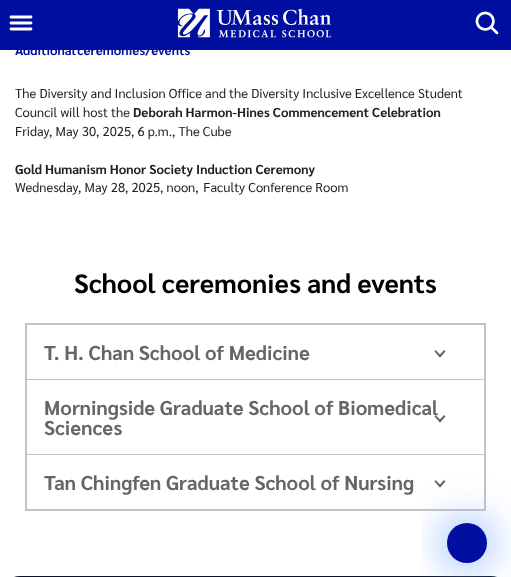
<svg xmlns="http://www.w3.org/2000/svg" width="511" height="577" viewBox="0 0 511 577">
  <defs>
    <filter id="blur1" x="-50%" y="-200%" width="200%" height="500%"><feGaussianBlur stdDeviation="20"/></filter>
  </defs>
  <rect width="100%" height="100%" fill="#ffffff"/>
  <rect x="0" y="0" width="511" height="50" fill="#000f9f"/>
  <path d="M11 17H31M11 23H31M11 29H31" fill="none" stroke="#ffffff" stroke-width="2.8" stroke-linecap="round"/>
  <image x="177" y="8" width="155" height="30" href="img1.png"/>
  <image x="475" y="11" width="24" height="24" href="img2.png"/>
  <text x="15" y="55" font-family="Sarabun" font-size="13" font-weight="bold" fill="#000f9f">Additional ceremonies/events</text>
  <text x="15" y="98" font-family="Sarabun" font-size="13" fill="#222222">The Diversity and Inclusion Office and the Diversity Inclusive Excellence Student</text>
  <text x="15" y="117" font-family="Sarabun" font-size="13" fill="#222222">Council will host the</text>
  <text x="133" y="117" font-family="Sarabun" font-size="13" font-weight="bold" fill="#222222">Deborah Harmon-Hines Commencement Celebration</text>
  <text x="15" y="136" font-family="Sarabun" font-size="13" fill="#222222">Friday, May 30, 2025, 6 p.m., The Cube</text>
  <text x="15" y="174" font-family="Sarabun" font-size="13" font-weight="bold" fill="#222222">Gold Humanism Honor Society Induction Ceremony</text>
  <text x="15" y="192" font-family="Sarabun" font-size="13" fill="#222222">Wednesday, May 28, 2025, noon,  Faculty Conference Room</text>
  <text x="74" y="293" font-family="Sarabun" font-size="26.6" font-weight="bold" fill="#000000">School ceremonies and events</text>
  <rect x="26" y="324" width="459" height="186" fill="none" stroke="#c3c3c3" stroke-width="2"/>
  <text x="44" y="360" font-family="Sarabun" font-size="20" font-weight="bold" fill="#666666">T. H. Chan School of Medicine</text>
  <path d="M444 350L445.5 351.5L440 357.5L438.5 356Z" fill="#666666"/>
  <path d="M435.5 350L441.5 356L440 357.5L434.5 351.5Z" fill="#666666"/>
  <rect x="27" y="379" width="457" height="1" fill="#c3c3c3"/>
  <text x="44" y="415" font-family="Sarabun" font-size="20" font-weight="bold" fill="#666666">Morningside Graduate School of Biomedical</text>
  <path d="M444 415L445.5 416.5L440 422.5L438.5 421Z" fill="#666666"/>
  <path d="M435.5 415L441.5 421L440 422.5L434.5 416.5Z" fill="#666666"/>
  <text x="44" y="435" font-family="Sarabun" font-size="20" font-weight="bold" fill="#666666">Sciences</text>
  <rect x="27" y="454" width="457" height="1" fill="#c3c3c3"/>
  <text x="44" y="490" font-family="Sarabun" font-size="20" font-weight="bold" fill="#666666">Tan Chingfen Graduate School of Nursing</text>
  <path d="M444 480L445.5 481.5L440 487.5L438.5 486Z" fill="#666666"/>
  <path d="M435.5 480L441.5 486L440 487.5L434.5 481.5Z" fill="#666666"/>
  <path d="M20 576H491C502 576 511 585 511 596V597H0V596C0 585 9 576 20 576Z" fill="#0a1329"/>
  <rect x="444" y="520" width="46" height="46" rx="23" fill="#84afff" filter="url(#blur1)"/>
  <circle cx="467" cy="543" r="20" fill="#000f9f"/>
</svg>
